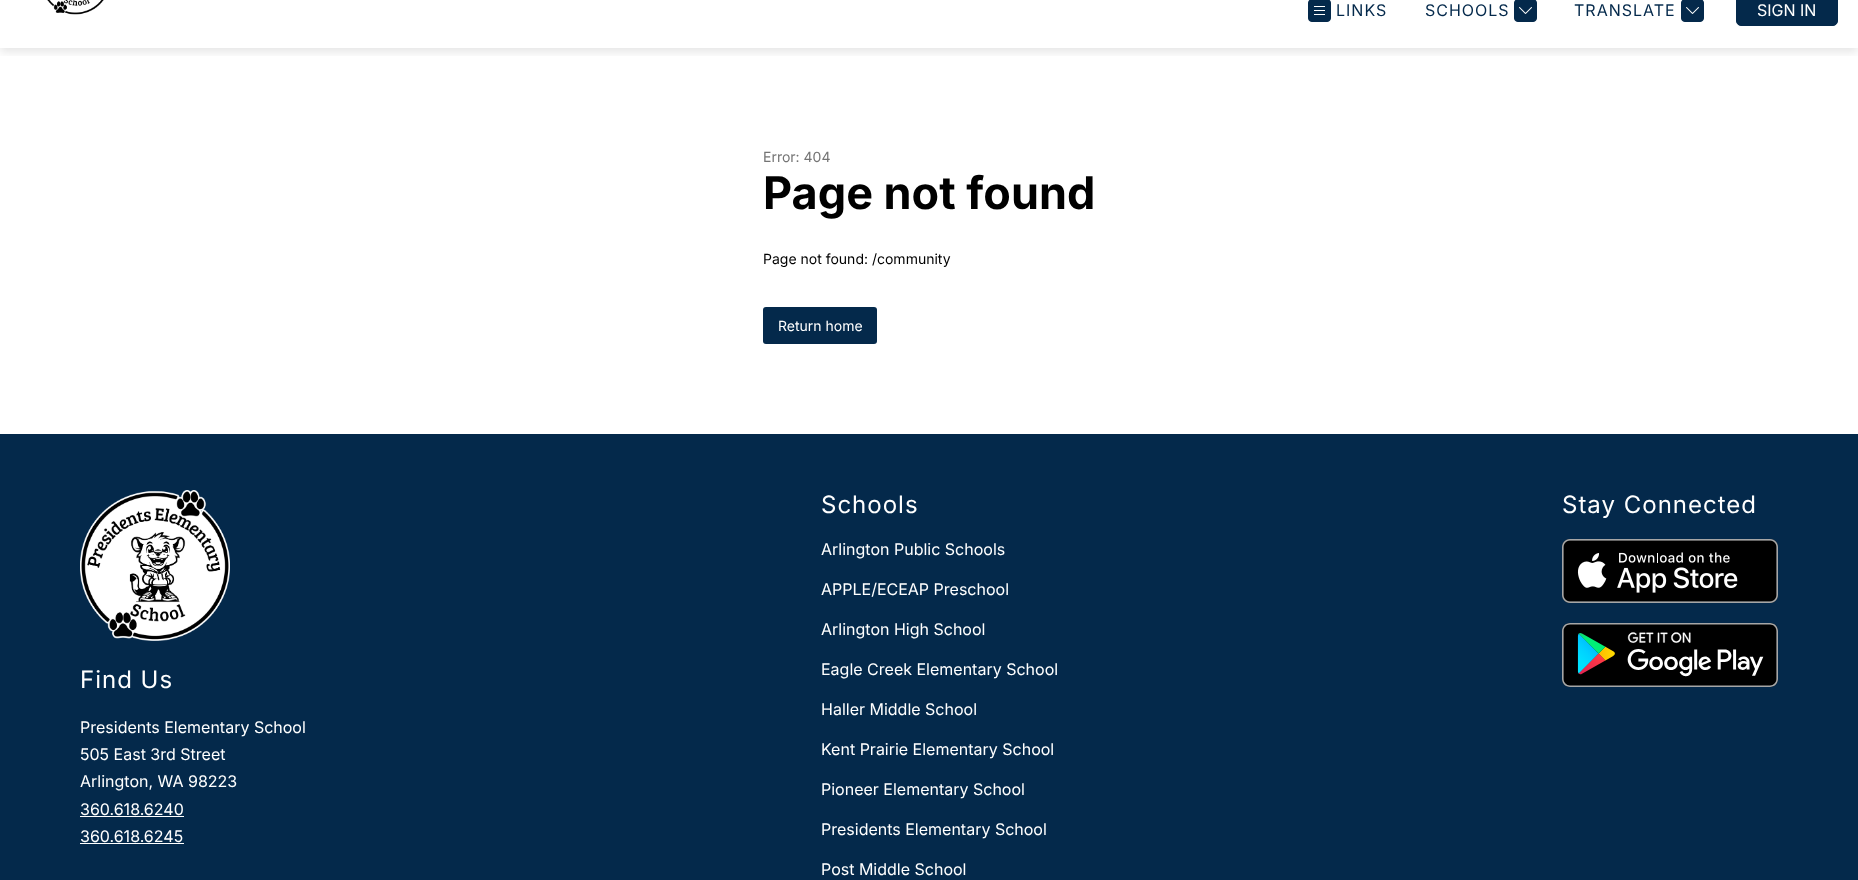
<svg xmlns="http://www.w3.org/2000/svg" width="1858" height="880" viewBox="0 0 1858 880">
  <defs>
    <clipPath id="clip1"><rect x="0" y="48" width="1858" height="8"/></clipPath>
    <filter id="blur1" x="-50%" y="-200%" width="200%" height="500%"><feGaussianBlur stdDeviation="5"/></filter>
  </defs>
  <rect width="100%" height="100%" fill="#ffffff"/>
  <g clip-path="url(#clip1)">
    <rect x="0" y="-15" width="1858" height="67" fill="#000000" fill-opacity="0.1" filter="url(#blur1)"/>
  </g>
  <image x="47" y="0" width="57" height="15" href="img1.png"/>
  <image x="1308" y="0" width="23" height="22" href="img2.png"/>
  <text x="1336" y="16" font-family="Inter" font-size="16" letter-spacing="1" fill="#04294b">LINKS</text>
  <text x="1425" y="16" font-family="Inter" font-size="16" letter-spacing="1" fill="#04294b">SCHOOLS</text>
  <image x="1514" y="0" width="23" height="22" href="img3.png"/>
  <text x="1574" y="16" font-family="Inter" font-size="16" letter-spacing="1" fill="#04294b">TRANSLATE</text>
  <image x="1681" y="0" width="23" height="22" href="img3.png"/>
  <rect x="1736.5" y="-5.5" width="101" height="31" rx="4.5" fill="#04294b" stroke="#04294b"/>
  <text x="1757" y="16" font-family="Inter" font-size="16" fill="#ffffff">SIGN IN</text>
  <text x="763" y="162" font-family="Inter" font-size="14" fill="#747474">Error: 404</text>
  <text x="763" y="209" font-family="Inter" font-size="45" font-weight="bold" fill="#000000">Page not found</text>
  <text x="763" y="264" font-family="Inter" font-size="14" fill="#000000">Page not found: /community</text>
  <rect x="763" y="307" width="114" height="37" rx="3" fill="#04294b"/>
  <text x="778" y="331" font-family="Inter" font-size="14" fill="#ffffff">Return home</text>
  <rect x="0" y="434" width="1858" height="446" fill="#04294b"/>
  <text x="821" y="513" font-family="Inter" font-size="24" letter-spacing="1" fill="#ffffff">Schools</text>
  <text x="821" y="555" font-family="Inter" font-size="16" fill="#ffffff">Arlington Public Schools</text>
  <text x="821" y="595" font-family="Inter" font-size="16" fill="#ffffff">APPLE/ECEAP Preschool</text>
  <text x="821" y="635" font-family="Inter" font-size="16" fill="#ffffff">Arlington High School</text>
  <text x="821" y="675" font-family="Inter" font-size="16" fill="#ffffff">Eagle Creek Elementary School</text>
  <text x="821" y="715" font-family="Inter" font-size="16" fill="#ffffff">Haller Middle School</text>
  <text x="821" y="755" font-family="Inter" font-size="16" fill="#ffffff">Kent Prairie Elementary School</text>
  <text x="821" y="795" font-family="Inter" font-size="16" fill="#ffffff">Pioneer Elementary School</text>
  <text x="821" y="835" font-family="Inter" font-size="16" fill="#ffffff">Presidents Elementary School</text>
  <text x="821" y="875" font-family="Inter" font-size="16" fill="#ffffff">Post Middle School</text>
  <text x="1562" y="513" font-family="Inter" font-size="24" letter-spacing="1" fill="#ffffff">Stay Connected</text>
  <image x="1562" y="539" width="216" height="64" href="img4.png"/>
  <image x="1562" y="623" width="216" height="64" href="img5.png"/>
  <image x="80" y="490" width="150" height="151" href="img6.png"/>
  <text x="80" y="688" font-family="Inter" font-size="24" letter-spacing="1" fill="#ffffff">Find Us</text>
  <text x="80" y="733" font-family="Inter" font-size="16" fill="#ffffff">Presidents Elementary School</text>
  <text x="80" y="760" font-family="Inter" font-size="16" fill="#ffffff">505 East 3rd Street</text>
  <text x="80" y="787" font-family="Inter" font-size="16" fill="#ffffff">Arlington, WA 98223</text>
  <text x="80" y="815" font-family="Inter" font-size="16" fill="#ffffff">360.618.6240</text>
  <rect x="80" y="816" width="104" height="1" fill="#ffffff"/>
  <text x="80" y="842" font-family="Inter" font-size="16" fill="#ffffff">360.618.6245</text>
  <rect x="80" y="843" width="104" height="1" fill="#ffffff"/>
</svg>
